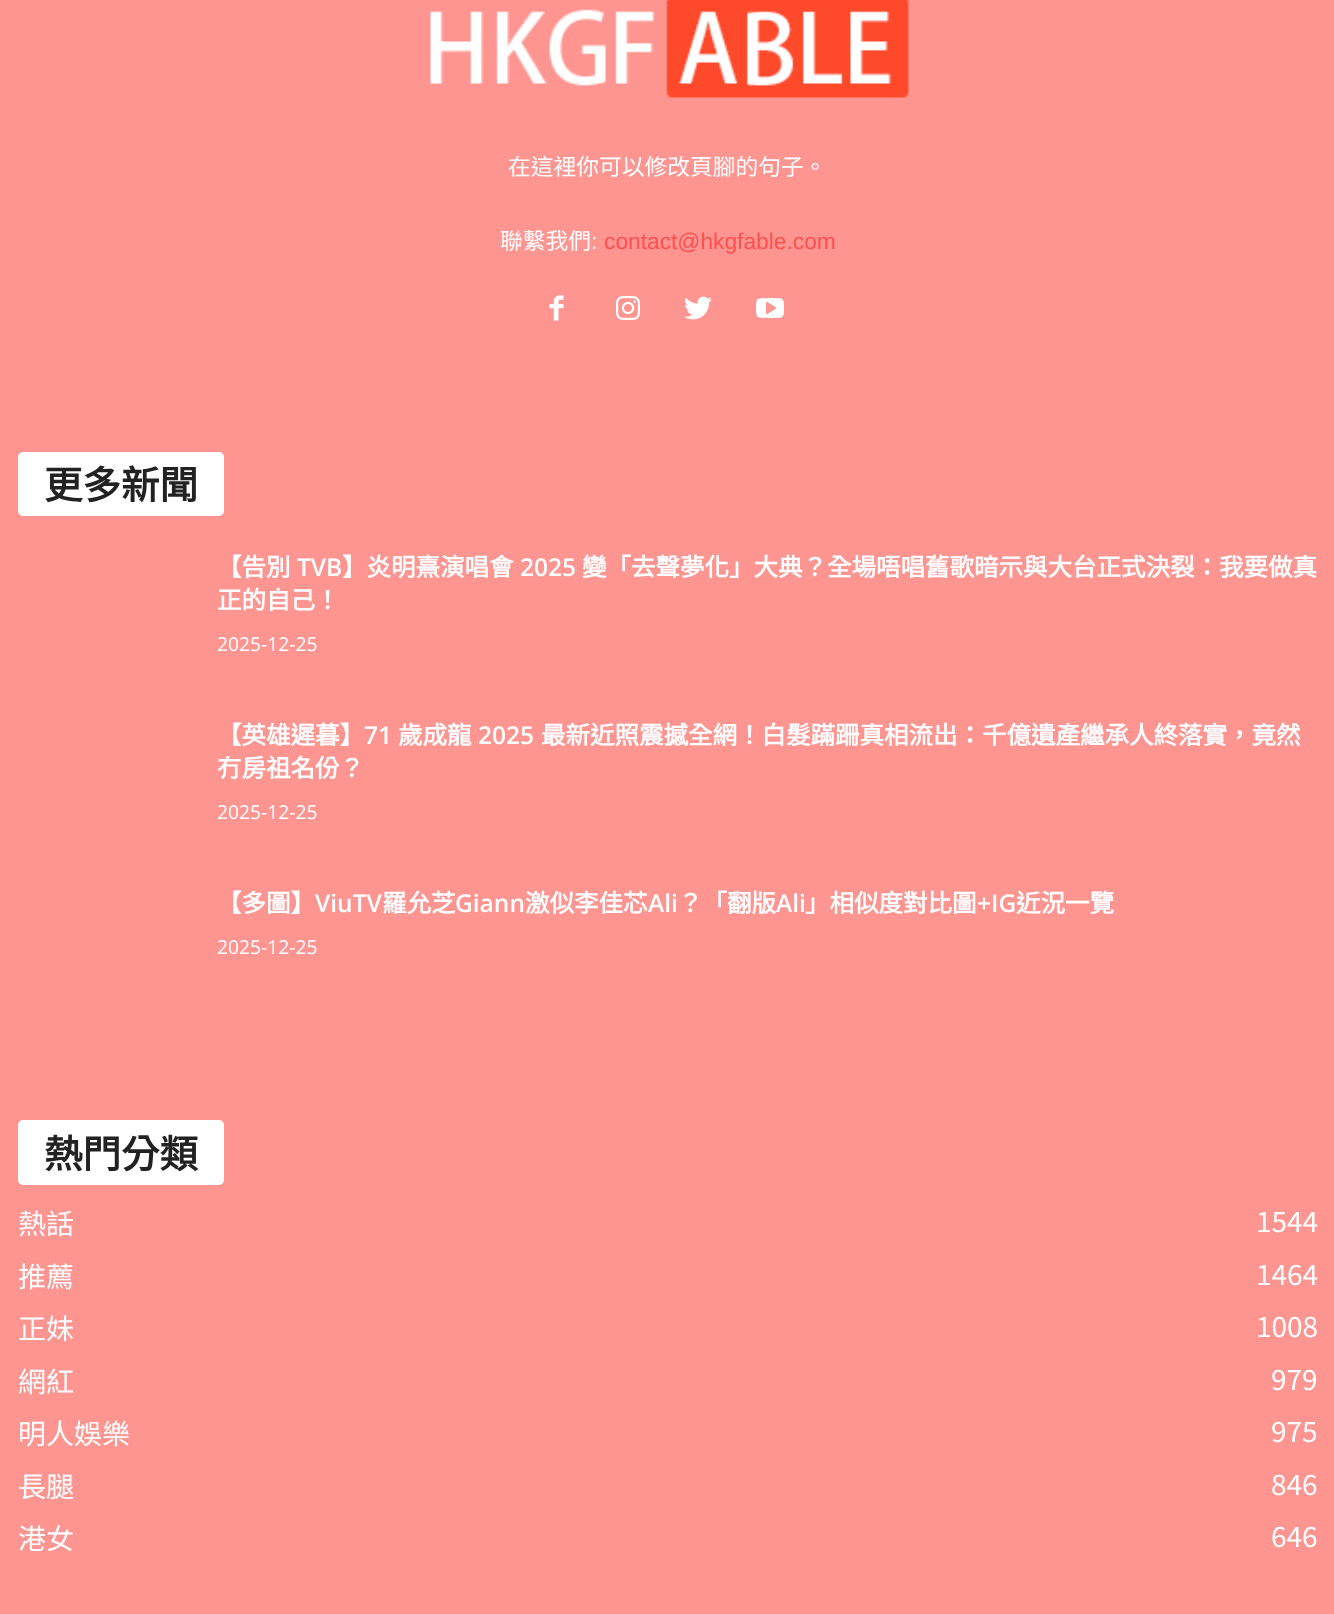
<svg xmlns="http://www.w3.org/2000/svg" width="1334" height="1614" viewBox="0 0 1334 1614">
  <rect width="100%" height="100%" fill="#ff9591"/>
  <image x="430" y="0" width="479" height="98" href="img1.png"/>
  <text x="508" y="175" font-family="Noto Sans CJK TC" font-size="22.75" fill="#ffffff">在這裡你可以修改頁腳的句子。</text>
  <text x="500" y="249" font-family="Noto Sans CJK TC" font-size="22.75" fill="#ffffff">聯繫我們</text>
  <text x="591" y="249" font-family="Liberation Sans" font-size="22.75" fill="#ffffff">:</text>
  <text x="604" y="249" font-family="Liberation Sans" font-size="22.75" fill="#ff4f4f">contact@hkgfable.com</text>
  <image x="549" y="295" width="15" height="26" href="img2.png"/>
  <image x="616" y="296" width="24" height="24" href="img3.png"/>
  <image x="684" y="296" width="28" height="24" href="img4.png"/>
  <image x="756" y="298" width="28" height="20" href="img5.png"/>
  <rect x="18" y="452" width="206" height="64" rx="5" fill="#ffffff"/>
  <text x="44" y="499" font-family="Noto Sans CJK TC" font-size="38.5" font-weight="bold" fill="#222222">更多新聞</text>
  <text x="217" y="576" font-family="Noto Sans CJK TC" font-size="24.5" font-weight="bold" fill="#ffffff">【告別</text>
  <text x="297" y="576" font-family="Open Sans" font-size="24.5" font-weight="600" fill="#ffffff">TVB</text>
  <text x="342" y="576" font-family="Noto Sans CJK TC" font-size="24.5" font-weight="bold" fill="#ffffff">】炎明熹演唱會</text>
  <text x="520" y="576" font-family="Open Sans" font-size="24.5" font-weight="600" fill="#ffffff">2025</text>
  <text x="582" y="576" font-family="Noto Sans CJK TC" font-size="24.5" font-weight="bold" fill="#ffffff">變「去聲夢化」大典？全場唔唱舊歌暗示與大台正式決裂：我要做真</text>
  <text x="217" y="609" font-family="Noto Sans CJK TC" font-size="24.5" font-weight="bold" fill="#ffffff">正的自己！</text>
  <text x="217" y="651" font-family="Open Sans" font-size="19.25" fill="#ffffff">2025-12-25</text>
  <text x="217" y="744" font-family="Noto Sans CJK TC" font-size="24.5" font-weight="bold" fill="#ffffff">【英雄遲暮】</text>
  <text x="364" y="744" font-family="Open Sans" font-size="24.5" font-weight="600" fill="#ffffff">71</text>
  <text x="398" y="744" font-family="Noto Sans CJK TC" font-size="24.5" font-weight="bold" fill="#ffffff">歲成龍</text>
  <text x="478" y="744" font-family="Open Sans" font-size="24.5" font-weight="600" fill="#ffffff">2025</text>
  <text x="541" y="744" font-family="Noto Sans CJK TC" font-size="24.5" font-weight="bold" fill="#ffffff">最新近照震撼全網！白髮蹣跚真相流出：千億遺產繼承人終落實，竟然</text>
  <text x="217" y="777" font-family="Noto Sans CJK TC" font-size="24.5" font-weight="bold" fill="#ffffff">冇房祖名份？</text>
  <text x="217" y="819" font-family="Open Sans" font-size="19.25" fill="#ffffff">2025-12-25</text>
  <text x="217" y="912" font-family="Noto Sans CJK TC" font-size="24.5" font-weight="bold" fill="#ffffff">【多圖】</text>
  <text x="315" y="912" font-family="Open Sans" font-size="24.5" font-weight="600" fill="#ffffff">ViuTV</text>
  <text x="382" y="912" font-family="Noto Sans CJK TC" font-size="24.5" font-weight="bold" fill="#ffffff">羅允芝</text>
  <text x="455" y="912" font-family="Open Sans" font-size="24.5" font-weight="600" fill="#ffffff">Giann</text>
  <text x="525" y="912" font-family="Noto Sans CJK TC" font-size="24.5" font-weight="bold" fill="#ffffff">激似李佳芯</text>
  <text x="648" y="912" font-family="Open Sans" font-size="24.5" font-weight="600" fill="#ffffff">Ali</text>
  <text x="678" y="912" font-family="Noto Sans CJK TC" font-size="24.5" font-weight="bold" fill="#ffffff">？「翻版</text>
  <text x="776" y="912" font-family="Open Sans" font-size="24.5" font-weight="600" fill="#ffffff">Ali</text>
  <text x="805" y="912" font-family="Noto Sans CJK TC" font-size="24.5" font-weight="bold" fill="#ffffff">」相似度對比圖</text>
  <text x="977" y="912" font-family="Open Sans" font-size="24.5" font-weight="600" fill="#ffffff">+IG</text>
  <text x="1016" y="912" font-family="Noto Sans CJK TC" font-size="24.5" font-weight="bold" fill="#ffffff">近況一覽</text>
  <text x="217" y="954" font-family="Open Sans" font-size="19.25" fill="#ffffff">2025-12-25</text>
  <rect x="18" y="1120" width="206" height="65" rx="5" fill="#ffffff"/>
  <text x="44" y="1168" font-family="Noto Sans CJK TC" font-size="38.5" font-weight="bold" fill="#222222">熱門分類</text>
  <text x="18" y="1234" font-family="Noto Sans TC" font-size="28" font-weight="100" fill="#ffffff">熱話</text>
  <text x="1256" y="1232" font-family="Noto Sans TC" font-size="28" font-weight="100" fill="#ffffff">1544</text>
  <text x="18" y="1287" font-family="Noto Sans TC" font-size="28" font-weight="100" fill="#ffffff">推薦</text>
  <text x="1256" y="1285" font-family="Noto Sans TC" font-size="28" font-weight="100" fill="#ffffff">1464</text>
  <text x="18" y="1339" font-family="Noto Sans TC" font-size="28" font-weight="100" fill="#ffffff">正妹</text>
  <text x="1256" y="1337" font-family="Noto Sans TC" font-size="28" font-weight="100" fill="#ffffff">1008</text>
  <text x="18" y="1392" font-family="Noto Sans TC" font-size="28" font-weight="100" fill="#ffffff">網紅</text>
  <text x="1271" y="1390" font-family="Noto Sans TC" font-size="28" font-weight="100" fill="#ffffff">979</text>
  <text x="18" y="1444" font-family="Noto Sans TC" font-size="28" font-weight="100" fill="#ffffff">明人娛樂</text>
  <text x="1271" y="1442" font-family="Noto Sans TC" font-size="28" font-weight="100" fill="#ffffff">975</text>
  <text x="18" y="1497" font-family="Noto Sans TC" font-size="28" font-weight="100" fill="#ffffff">長腿</text>
  <text x="1271" y="1495" font-family="Noto Sans TC" font-size="28" font-weight="100" fill="#ffffff">846</text>
  <text x="18" y="1549" font-family="Noto Sans TC" font-size="28" font-weight="100" fill="#ffffff">港女</text>
  <text x="1271" y="1547" font-family="Noto Sans TC" font-size="28" font-weight="100" fill="#ffffff">646</text>
</svg>
